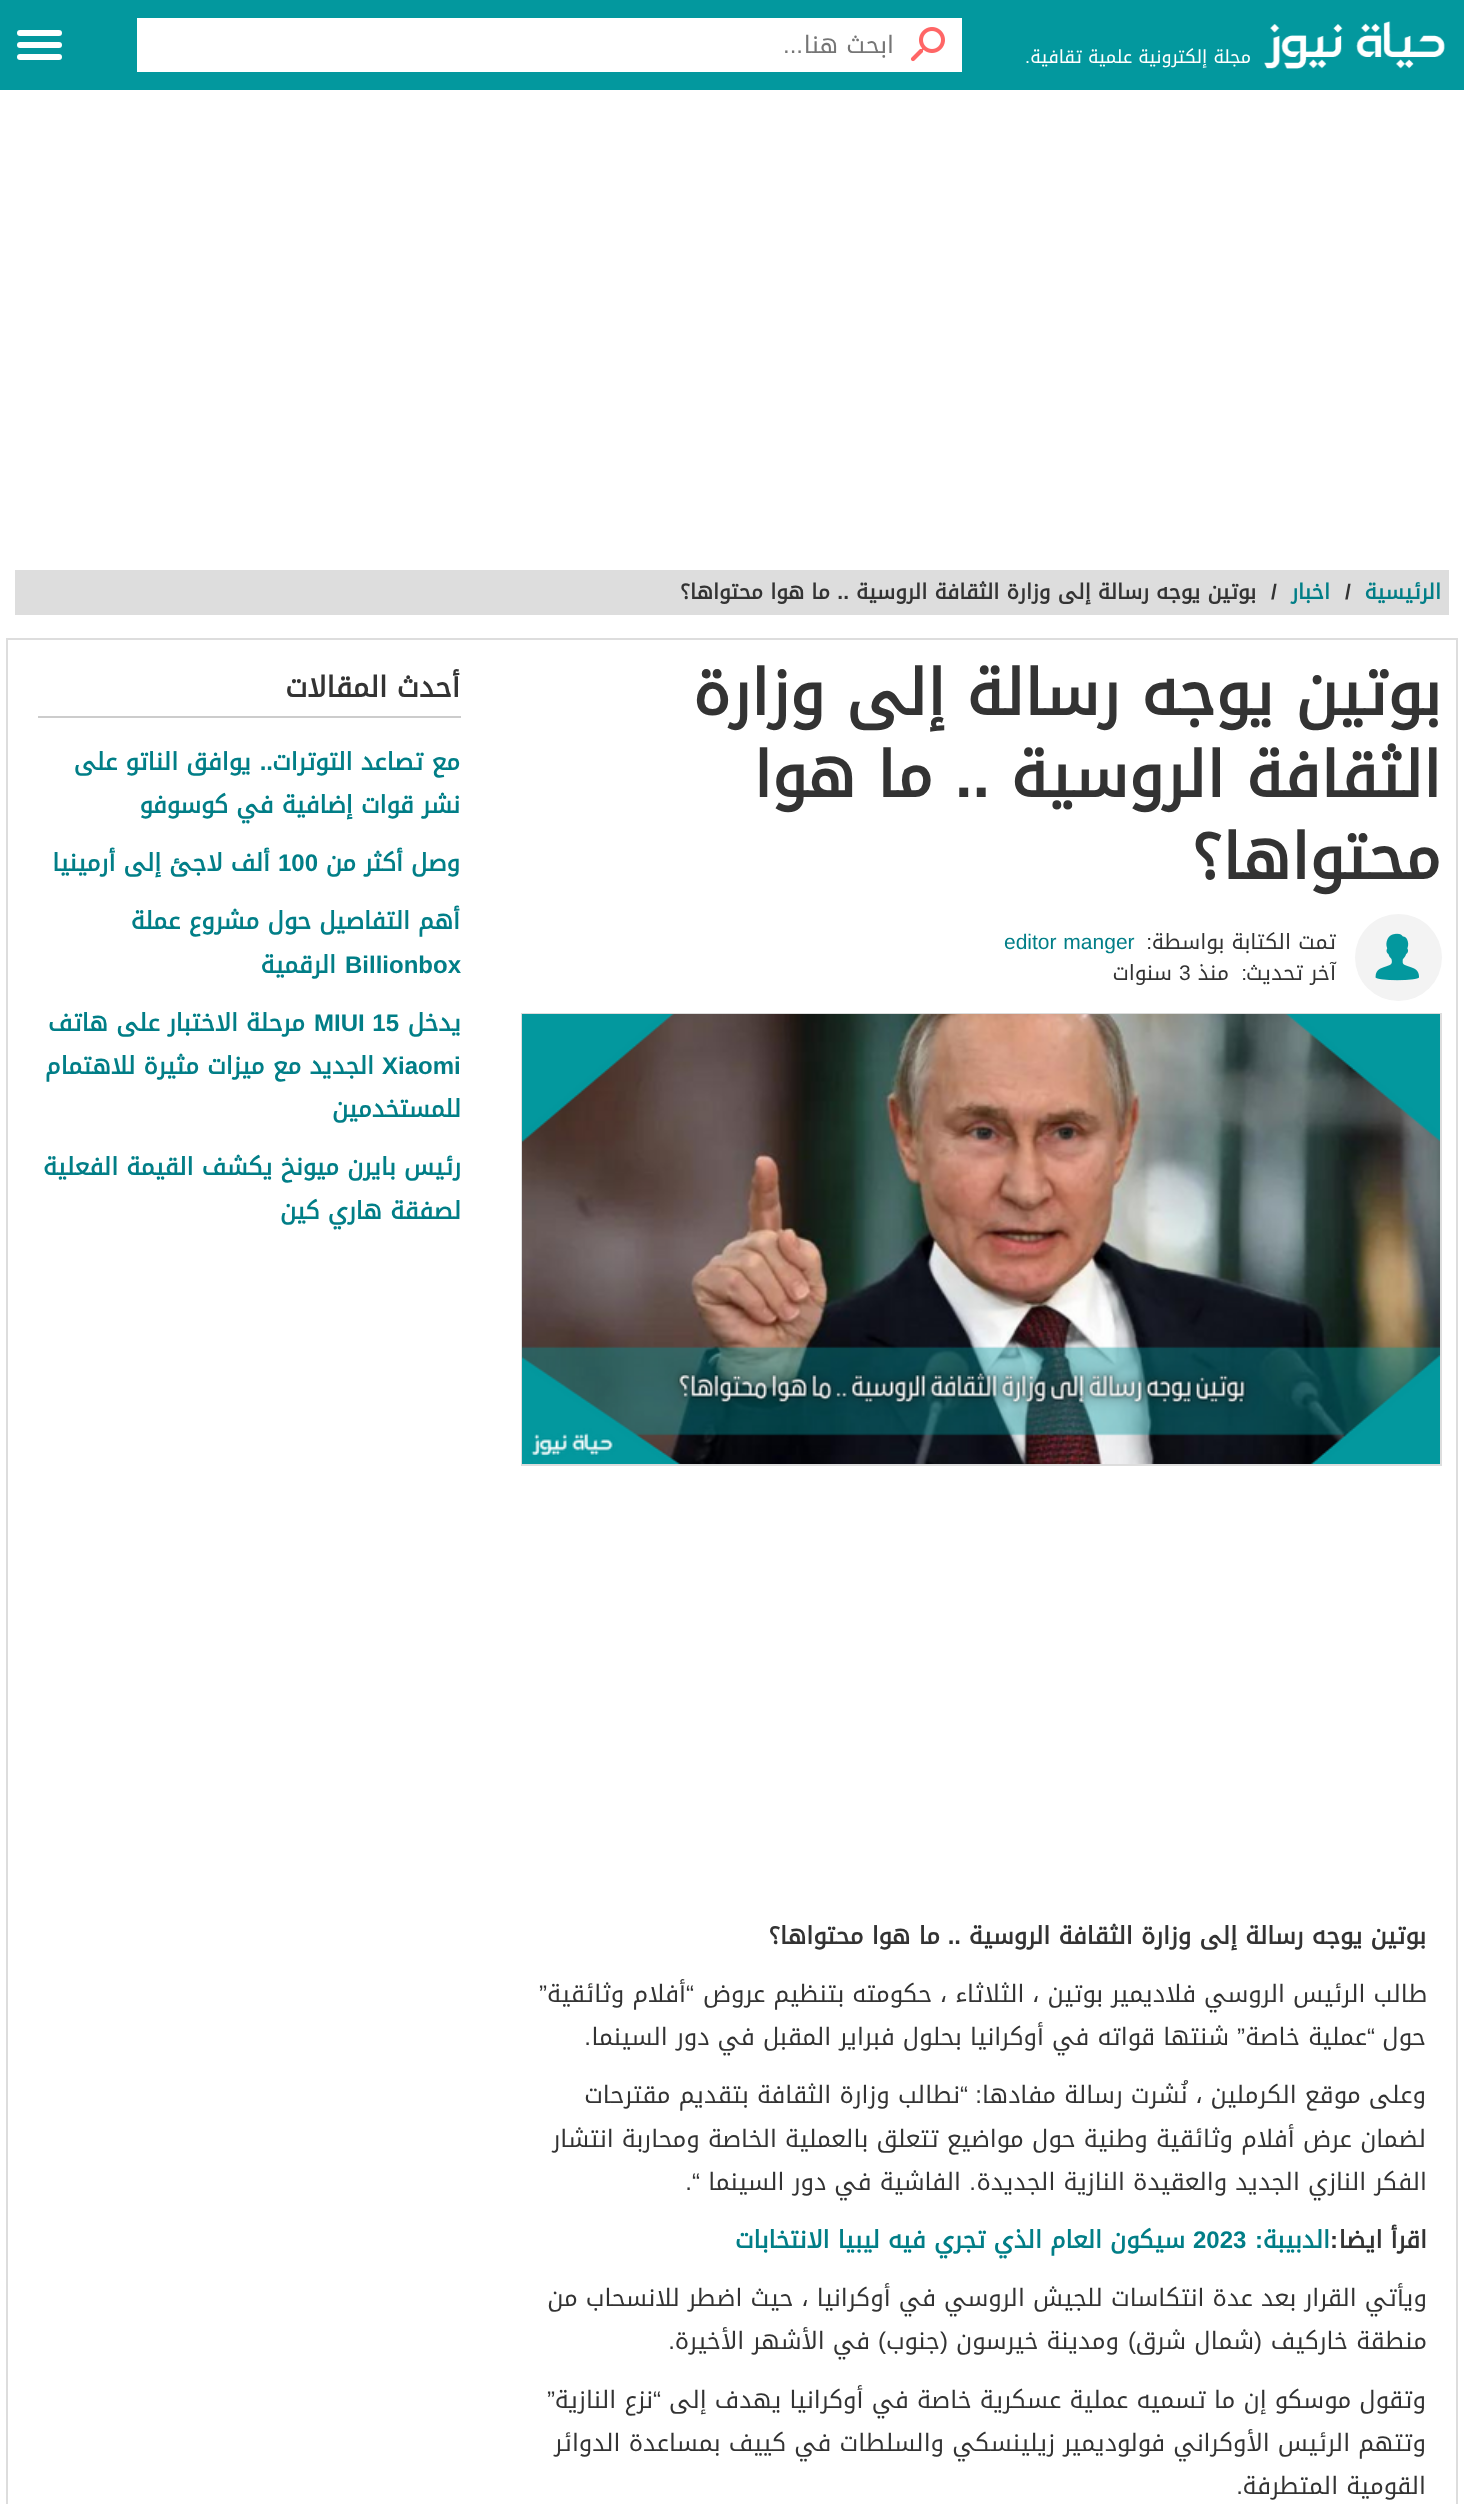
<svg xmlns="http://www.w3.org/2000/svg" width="1464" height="2504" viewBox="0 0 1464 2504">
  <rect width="100%" height="100%" fill="#ffffff"/>
  <rect x="0" y="0" width="1464" height="90" fill="#03989e"/>
  <image x="1264" y="21" width="181" height="48" href="img1.png"/>
  <text x="1251" y="63" font-family="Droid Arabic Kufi" font-size="18" direction="rtl" fill="#ffffff">مجلة إلكترونية علمية تقافية</text>
  <text x="1030" y="63" font-family="Liberation Sans" font-size="18" direction="rtl" fill="#ffffff">.</text>
  <rect x="137" y="18" width="825" height="54" fill="#ffffff"/>
  <image x="910" y="27" width="35" height="35" href="img2.png"/>
  <text x="894" y="53" font-family="Droid Arabic Kufi" font-size="24" direction="rtl" fill="#757575">ابحث هنا</text>
  <text x="803" y="53" font-family="Liberation Sans" font-size="24" direction="rtl" fill="#757575">...</text>
  <rect x="17" y="30" width="45" height="6" rx="3" fill="#ffffff"/>
  <rect x="17" y="42" width="45" height="6" rx="3" fill="#ffffff"/>
  <rect x="17" y="54" width="45" height="6" rx="3" fill="#ffffff"/>
  <rect x="15" y="570" width="1434" height="45" fill="#dddddd"/>
  <text x="1441" y="599" font-family="Droid Arabic Kufi" font-size="21" font-weight="bold" direction="rtl" fill="#017e87">الرئيسية</text>
  <text x="1345" y="599" font-family="Liberation Sans" font-size="21" font-weight="bold" fill="#333333">/</text>
  <text x="1330" y="599" font-family="Droid Arabic Kufi" font-size="21" font-weight="bold" direction="rtl" fill="#017e87">اخبار</text>
  <text x="1271" y="599" font-family="Liberation Sans" font-size="21" font-weight="bold" fill="#333333">/</text>
  <text x="1256" y="599" font-family="Droid Arabic Kufi" font-size="21" font-weight="bold" direction="rtl" fill="#333333">بوتين يوجه رسالة إلى وزارة الثقافة الروسية</text>
  <text x="849" y="599" font-family="Liberation Sans" font-size="21" font-weight="bold" direction="rtl" fill="#333333">..</text>
  <text x="830" y="599" font-family="Droid Arabic Kufi" font-size="21" font-weight="bold" direction="rtl" fill="#333333">ما هوا محتواها؟</text>
  <rect x="7" y="639" width="1450" height="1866" fill="none" stroke="#dddddd" stroke-width="2"/>
  <text x="1441" y="715" font-family="Droid Arabic Kufi" font-size="63" font-weight="bold" direction="rtl" fill="#333333">بوتين يوجه رسالة إلى وزارة</text>
  <text x="1441" y="797" font-family="Droid Arabic Kufi" font-size="63" font-weight="bold" direction="rtl" fill="#333333">الثقافة الروسية</text>
  <text x="990" y="797" font-family="Liberation Sans" font-size="63" font-weight="bold" direction="rtl" fill="#333333">..</text>
  <text x="933" y="797" font-family="Droid Arabic Kufi" font-size="63" font-weight="bold" direction="rtl" fill="#333333">ما هوا</text>
  <text x="1441" y="879" font-family="Droid Arabic Kufi" font-size="63" font-weight="bold" direction="rtl" fill="#333333">محتواها؟</text>
  <circle cx="1398.5" cy="957.5" r="43.5" fill="#f3f3f3"/>
  <image x="1375" y="933" width="44" height="48" href="img3.png"/>
  <text x="1336" y="949" font-family="Droid Arabic Kufi" font-size="21" direction="rtl" fill="#333333">تمت الكتابة بواسطة</text>
  <text x="1152" y="949" font-family="Liberation Sans" font-size="21" direction="rtl" fill="#333333">:</text>
  <text x="1004" y="949" word-spacing="1" font-family="Liberation Sans" font-size="21" fill="#017e87">editor manger</text>
  <text x="1336" y="980" font-family="Droid Arabic Kufi" font-size="21" direction="rtl" fill="#333333">آخر تحديث</text>
  <text x="1247" y="980" font-family="Liberation Sans" font-size="21" direction="rtl" fill="#333333">:</text>
  <text x="1229" y="980" font-family="Droid Arabic Kufi" font-size="21" direction="rtl" fill="#333333">منذ</text>
  <text x="1179" y="980" font-family="Liberation Sans" font-size="21" fill="#333333">3</text>
  <text x="1172" y="980" font-family="Droid Arabic Kufi" font-size="21" direction="rtl" fill="#333333">سنوات</text>
  <rect x="522" y="1014" width="919" height="451" fill="none" stroke="#dddddd" stroke-width="2"/>
  <image x="522" y="1014" width="918" height="450" href="img4.png"/>
  <text x="1426" y="1944" font-family="Droid Arabic Kufi" font-size="24" font-weight="bold" direction="rtl" fill="#333333">بوتين يوجه رسالة إلى وزارة الثقافة الروسية</text>
  <text x="961" y="1944" font-family="Liberation Sans" font-size="24" font-weight="bold" direction="rtl" fill="#333333">..</text>
  <text x="940" y="1944" font-family="Droid Arabic Kufi" font-size="24" font-weight="bold" direction="rtl" fill="#333333">ما هوا محتواها؟</text>
  <text x="1427" y="2002" font-family="Droid Arabic Kufi" font-size="24" direction="rtl" fill="#333333">طالب الرئيس الروسي فلاديمير بوتين ، الثلاثاء ، حكومته بتنظيم عروض</text>
  <text x="694" y="2002" font-family="Liberation Sans" font-size="24" direction="rtl" fill="#333333">“</text>
  <text x="686" y="2002" font-family="Droid Arabic Kufi" font-size="24" direction="rtl" fill="#333333">أفلام وثائقية</text>
  <text x="547" y="2002" font-family="Liberation Sans" font-size="24" direction="rtl" fill="#333333">”</text>
  <text x="1426" y="2045" font-family="Droid Arabic Kufi" font-size="24" direction="rtl" fill="#333333">حول</text>
  <text x="1375" y="2045" font-family="Liberation Sans" font-size="24" direction="rtl" fill="#333333">“</text>
  <text x="1367" y="2045" font-family="Droid Arabic Kufi" font-size="24" direction="rtl" fill="#333333">عملية خاصة</text>
  <text x="1245" y="2045" font-family="Liberation Sans" font-size="24" direction="rtl" fill="#333333">”</text>
  <text x="1229" y="2045" font-family="Droid Arabic Kufi" font-size="24" direction="rtl" fill="#333333">شنتها قواته في أوكرانيا بحلول فبراير المقبل في دور السينما</text>
  <text x="591" y="2045" font-family="Liberation Sans" font-size="24" direction="rtl" fill="#333333">.</text>
  <text x="1426" y="2103" font-family="Droid Arabic Kufi" font-size="24" direction="rtl" fill="#333333">وعلى موقع الكرملين ، نُشرت رسالة مفادها</text>
  <text x="968" y="2103" font-family="Liberation Sans" font-size="24" direction="rtl" fill="#333333">“</text>
  <text x="960" y="2103" font-family="Droid Arabic Kufi" font-size="24" direction="rtl" fill="#333333">نطالب وزارة الثقافة بتقديم مقترحات</text>
  <text x="982" y="2103" font-family="Liberation Sans" font-size="24" direction="rtl" fill="#333333">:</text>
  <text x="1426" y="2147" font-family="Droid Arabic Kufi" font-size="24" direction="rtl" fill="#333333">لضمان عرض أفلام وثائقية وطنية حول مواضيع تتعلق بالعملية الخاصة ومحاربة انتشار</text>
  <text x="1427" y="2190" font-family="Droid Arabic Kufi" font-size="24" direction="rtl" fill="#333333">الفكر النازي الجديد والعقيدة النازية الجديدة</text>
  <text x="976" y="2190" font-family="Liberation Sans" font-size="24" direction="rtl" fill="#333333">.</text>
  <text x="961" y="2190" font-family="Droid Arabic Kufi" font-size="24" direction="rtl" fill="#333333">الفاشية في دور السينما</text>
  <text x="700" y="2190" font-family="Liberation Sans" font-size="24" direction="rtl" fill="#333333">“.</text>
  <text x="1427" y="2248" font-family="Droid Arabic Kufi" font-size="24" font-weight="bold" direction="rtl" fill="#333333">اقرأ ايضا</text>
  <text x="1338" y="2248" font-family="Liberation Sans" font-size="24" font-weight="bold" direction="rtl" fill="#333333">:</text>
  <text x="1330" y="2248" font-family="Droid Arabic Kufi" font-size="24" font-weight="bold" direction="rtl" fill="#017e87">الدبيبة</text>
  <text x="1263" y="2248" font-family="Liberation Sans" font-size="24" font-weight="bold" direction="rtl" fill="#017e87">:</text>
  <text x="1193" y="2248" font-family="Liberation Sans" font-size="24" font-weight="bold" fill="#017e87">2023</text>
  <text x="1185" y="2248" font-family="Droid Arabic Kufi" font-size="24" font-weight="bold" direction="rtl" fill="#017e87">سيكون العام الذي تجري فيه ليبيا الانتخابات</text>
  <text x="1427" y="2306" font-family="Droid Arabic Kufi" font-size="24" direction="rtl" fill="#333333">ويأتي القرار بعد عدة انتكاسات للجيش الروسي في أوكرانيا ، حيث اضطر للانسحاب من</text>
  <text x="1427" y="2349" font-family="Droid Arabic Kufi" font-size="24" direction="rtl" fill="#333333">منطقة خاركيف</text>
  <text x="1262" y="2349" font-family="Liberation Sans" font-size="24" direction="rtl" fill="#333333">(</text>
  <text x="1254" y="2349" font-family="Droid Arabic Kufi" font-size="24" direction="rtl" fill="#333333">شمال شرق</text>
  <text x="1136" y="2349" font-family="Liberation Sans" font-size="24" direction="rtl" fill="#333333">)</text>
  <text x="1119" y="2349" font-family="Droid Arabic Kufi" font-size="24" direction="rtl" fill="#333333">ومدينة خيرسون</text>
  <text x="948" y="2349" font-family="Liberation Sans" font-size="24" direction="rtl" fill="#333333">(</text>
  <text x="940" y="2349" font-family="Droid Arabic Kufi" font-size="24" direction="rtl" fill="#333333">جنوب</text>
  <text x="886" y="2349" font-family="Liberation Sans" font-size="24" direction="rtl" fill="#333333">)</text>
  <text x="870" y="2349" font-family="Droid Arabic Kufi" font-size="24" direction="rtl" fill="#333333">في الأشهر الأخيرة</text>
  <text x="675" y="2349" font-family="Liberation Sans" font-size="24" direction="rtl" fill="#333333">.</text>
  <text x="1426" y="2408" font-family="Droid Arabic Kufi" font-size="24" direction="rtl" fill="#333333">وتقول موسكو إن ما تسميه عملية عسكرية خاصة في أوكرانيا يهدف إلى</text>
  <text x="661" y="2408" font-family="Liberation Sans" font-size="24" direction="rtl" fill="#333333">“</text>
  <text x="653" y="2408" font-family="Droid Arabic Kufi" font-size="24" direction="rtl" fill="#333333">نزع النازية</text>
  <text x="555" y="2408" font-family="Liberation Sans" font-size="24" direction="rtl" fill="#333333">”</text>
  <text x="1426" y="2451" font-family="Droid Arabic Kufi" font-size="24" direction="rtl" fill="#333333">وتتهم الرئيس الأوكراني فولوديمير زيلينسكي والسلطات في كييف بمساعدة الدوائر</text>
  <text x="1426" y="2494" font-family="Droid Arabic Kufi" font-size="24" direction="rtl" fill="#333333">القومية المتطرفة</text>
  <text x="1243" y="2494" font-family="Liberation Sans" font-size="24" direction="rtl" fill="#333333">.</text>
  <rect x="38" y="716" width="423" height="2" fill="#cccccc"/>
  <text x="460" y="697" font-family="Droid Arabic Kufi" font-size="28.5" font-weight="bold" direction="rtl" fill="#333333">أحدث المقالات</text>
  <text x="460" y="770" font-family="Droid Arabic Kufi" font-size="24" font-weight="bold" direction="rtl" fill="#017e87">مع تصاعد التوترات</text>
  <text x="273" y="770" font-family="Liberation Sans" font-size="24" font-weight="bold" direction="rtl" fill="#017e87">..</text>
  <text x="251" y="770" font-family="Droid Arabic Kufi" font-size="24" font-weight="bold" direction="rtl" fill="#017e87">يوافق الناتو على</text>
  <text x="460" y="813" font-family="Droid Arabic Kufi" font-size="24" font-weight="bold" direction="rtl" fill="#017e87">نشر قوات إضافية في كوسوفو</text>
  <text x="460" y="871" font-family="Droid Arabic Kufi" font-size="24" font-weight="bold" direction="rtl" fill="#017e87">وصل أكثر من</text>
  <text x="278" y="871" font-family="Liberation Sans" font-size="24" font-weight="bold" fill="#017e87">100</text>
  <text x="270" y="871" font-family="Droid Arabic Kufi" font-size="24" font-weight="bold" direction="rtl" fill="#017e87">ألف لاجئ إلى أرمينيا</text>
  <text x="460" y="929" font-family="Droid Arabic Kufi" font-size="24" font-weight="bold" direction="rtl" fill="#017e87">أهم التفاصيل حول مشروع عملة</text>
  <text x="345" y="973" font-family="Liberation Sans" font-size="24" font-weight="bold" fill="#017e87">Billionbox</text>
  <text x="336" y="973" font-family="Droid Arabic Kufi" font-size="24" font-weight="bold" direction="rtl" fill="#017e87">الرقمية</text>
  <text x="461" y="1031" font-family="Droid Arabic Kufi" font-size="24" font-weight="bold" direction="rtl" fill="#017e87">يدخل</text>
  <text x="314" y="1031" word-spacing="1" font-family="Liberation Sans" font-size="24" font-weight="bold" fill="#017e87">MIUI 15</text>
  <text x="305" y="1031" font-family="Droid Arabic Kufi" font-size="24" font-weight="bold" direction="rtl" fill="#017e87">مرحلة الاختبار على هاتف</text>
  <text x="382" y="1074" font-family="Liberation Sans" font-size="24" font-weight="bold" fill="#017e87">Xiaomi</text>
  <text x="374" y="1074" font-family="Droid Arabic Kufi" font-size="24" font-weight="bold" direction="rtl" fill="#017e87">الجديد مع ميزات مثيرة للاهتمام</text>
  <text x="461" y="1117" font-family="Droid Arabic Kufi" font-size="24" font-weight="bold" direction="rtl" fill="#017e87">للمستخدمين</text>
  <text x="461" y="1175" font-family="Droid Arabic Kufi" font-size="24" font-weight="bold" direction="rtl" fill="#017e87">رئيس بايرن ميونخ يكشف القيمة الفعلية</text>
  <text x="461" y="1219" font-family="Droid Arabic Kufi" font-size="24" font-weight="bold" direction="rtl" fill="#017e87">لصفقة هاري كين</text>
</svg>
